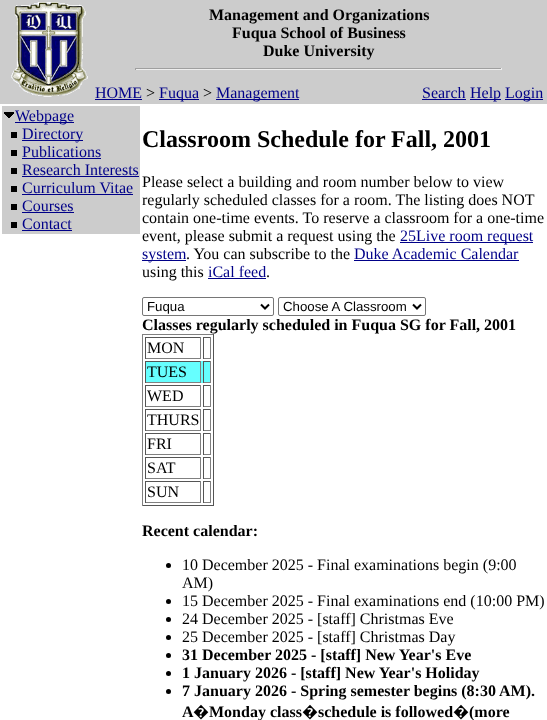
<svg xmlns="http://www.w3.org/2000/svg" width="547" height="720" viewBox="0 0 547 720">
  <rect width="100%" height="100%" fill="#ffffff"/>
  <rect x="0" y="0" width="547" height="104" fill="#cccccc"/>
  <image x="11" y="2" width="77" height="95" href="img1.png"/>
  <text x="209" y="20" font-family="Liberation Serif" font-size="16" font-weight="bold" fill="#000000">Management and Organizations</text>
  <text x="232" y="38" font-family="Liberation Serif" font-size="16" font-weight="bold" fill="#000000">Fuqua School of Business</text>
  <text x="263" y="56" font-family="Liberation Serif" font-size="16" font-weight="bold" fill="#000000">Duke University</text>
  <rect x="135" y="68" width="367" height="1" fill="#9f9f9f"/>
  <rect x="501" y="68" width="1" height="2" fill="#eeeeee"/>
  <rect x="135" y="69" width="367" height="1" fill="#eeeeee"/>
  <rect x="135" y="68" width="1" height="2" fill="#9f9f9f"/>
  <text x="95" y="98" font-family="Liberation Serif" font-size="16" fill="#000088">HOME</text>
  <rect x="95" y="99" width="47" height="1" fill="#000088"/>
  <text x="146" y="98" font-family="Liberation Serif" font-size="16" fill="#000000">&gt;</text>
  <rect x="159" y="99" width="40" height="1" fill="#000088"/>
  <text x="159" y="98" font-family="Liberation Serif" font-size="16" fill="#000088">Fuqua</text>
  <text x="203" y="98" font-family="Liberation Serif" font-size="16" fill="#000000">&gt;</text>
  <rect x="216" y="99" width="83" height="1" fill="#000088"/>
  <text x="216" y="98" font-family="Liberation Serif" font-size="16" fill="#000088">Management</text>
  <text x="422" y="98" font-family="Liberation Serif" font-size="16" fill="#000088">Search</text>
  <rect x="422" y="99" width="44" height="1" fill="#000088"/>
  <rect x="470" y="99" width="31" height="1" fill="#000088"/>
  <text x="470" y="98" font-family="Liberation Serif" font-size="16" fill="#000088">Help</text>
  <rect x="505" y="99" width="38" height="1" fill="#000088"/>
  <text x="505" y="98" font-family="Liberation Serif" font-size="16" fill="#000088">Login</text>
  <rect x="2" y="106" width="138" height="128" fill="#cccccc"/>
  <image x="4" y="112" width="10" height="6" href="img2.png"/>
  <rect x="15" y="122" width="59" height="1" fill="#000088"/>
  <text x="15" y="121" font-family="Liberation Serif" font-size="16" fill="#000088">Webpage</text>
  <rect x="11" y="132" width="6" height="6" fill="#000000"/>
  <rect x="22" y="140" width="61" height="1" fill="#000088"/>
  <text x="22" y="139" font-family="Liberation Serif" font-size="16" fill="#000088">Directory</text>
  <rect x="11" y="150" width="6" height="6" fill="#000000"/>
  <text x="22" y="157" font-family="Liberation Serif" font-size="16" fill="#000088">Publications</text>
  <rect x="22" y="158" width="79" height="1" fill="#000088"/>
  <rect x="11" y="168" width="6" height="6" fill="#000000"/>
  <text x="22" y="175" font-family="Liberation Serif" font-size="16" fill="#000088">Research Interests</text>
  <rect x="22" y="176" width="117" height="1" fill="#000088"/>
  <rect x="11" y="186" width="6" height="6" fill="#000000"/>
  <text x="22" y="193" font-family="Liberation Serif" font-size="16" fill="#000088">Curriculum Vitae</text>
  <rect x="22" y="194" width="111" height="1" fill="#000088"/>
  <rect x="11" y="204" width="6" height="6" fill="#000000"/>
  <text x="22" y="211" font-family="Liberation Serif" font-size="16" fill="#000088">Courses</text>
  <rect x="22" y="212" width="52" height="1" fill="#000088"/>
  <rect x="11" y="222" width="6" height="6" fill="#000000"/>
  <text x="22" y="229" font-family="Liberation Serif" font-size="16" fill="#000088">Contact</text>
  <rect x="22" y="230" width="50" height="1" fill="#000088"/>
  <text x="142" y="147" font-family="Liberation Serif" font-size="24" font-weight="bold" fill="#000000">Classroom Schedule for Fall, 2001</text>
  <text x="142" y="187" font-family="Liberation Serif" font-size="16" fill="#000000">Please select a building and room number below to view</text>
  <text x="142" y="205" font-family="Liberation Serif" font-size="16" fill="#000000">regularly scheduled classes for a room. The listing does NOT</text>
  <text x="142" y="223" font-family="Liberation Serif" font-size="16" fill="#000000">contain one-time events. To reserve a classroom for a one-time</text>
  <text x="142" y="241" font-family="Liberation Serif" font-size="16" fill="#000000">event, please submit a request using the</text>
  <rect x="400" y="242" width="133" height="1" fill="#000088"/>
  <text x="400" y="241" font-family="Liberation Serif" font-size="16" fill="#000088">25Live room request</text>
  <rect x="142" y="260" width="44" height="1" fill="#000088"/>
  <text x="142" y="259" font-family="Liberation Serif" font-size="16" fill="#000088">system</text>
  <text x="186" y="259" font-family="Liberation Serif" font-size="16" fill="#000000">. You can subscribe to the</text>
  <text x="354" y="259" font-family="Liberation Serif" font-size="16" fill="#000088">Duke Academic Calendar</text>
  <rect x="354" y="260" width="165" height="1" fill="#000088"/>
  <text x="142" y="277" font-family="Liberation Serif" font-size="16" fill="#000000">using this</text>
  <text x="208" y="277" font-family="Liberation Serif" font-size="16" fill="#000088">iCal feed</text>
  <rect x="208" y="278" width="58" height="1" fill="#000088"/>
  <text x="266" y="277" font-family="Liberation Serif" font-size="16" fill="#000000">.</text>
  <rect x="142.5" y="297.5" width="131" height="18" rx="1.5" fill="none" stroke="#767676"/>
  <path d="M261 304.5L265 308.5L269 304.5" fill="none" stroke="#000000" stroke-width="2"/>
  <text x="147" y="311" font-family="Liberation Sans" font-size="13.25" fill="#000000">Fuqua</text>
  <rect x="278.5" y="297.5" width="147" height="18" rx="1.5" fill="none" stroke="#767676"/>
  <path d="M413 304.5L417 308.5L421 304.5" fill="none" stroke="#000000" stroke-width="2"/>
  <text x="283" y="311" font-family="Liberation Sans" font-size="13.25" fill="#000000">Choose A Classroom</text>
  <text x="142" y="330" font-family="Liberation Serif" font-size="16" font-weight="bold" fill="#000000">Classes regularly scheduled in Fuqua SG for Fall, 2001</text>
  <rect x="142" y="334" width="72" height="1" fill="#808080"/>
  <rect x="213" y="334" width="1" height="172" fill="#555555"/>
  <rect x="142" y="505" width="72" height="1" fill="#555555"/>
  <rect x="142" y="334" width="1" height="172" fill="#808080"/>
  <rect x="145" y="337" width="56" height="1" fill="#555555"/>
  <rect x="200" y="337" width="1" height="22" fill="#808080"/>
  <rect x="145" y="358" width="56" height="1" fill="#808080"/>
  <rect x="145" y="337" width="1" height="22" fill="#555555"/>
  <text x="147" y="353" font-family="Liberation Serif" font-size="16" fill="#000000">MON</text>
  <rect x="203" y="337" width="8" height="1" fill="#555555"/>
  <rect x="210" y="337" width="1" height="22" fill="#808080"/>
  <rect x="203" y="358" width="8" height="1" fill="#808080"/>
  <rect x="203" y="337" width="1" height="22" fill="#555555"/>
  <rect x="146" y="361" width="64" height="22" fill="#66ffff"/>
  <rect x="145" y="361" width="56" height="1" fill="#555555"/>
  <rect x="200" y="361" width="1" height="22" fill="#808080"/>
  <rect x="145" y="382" width="56" height="1" fill="#808080"/>
  <rect x="145" y="361" width="1" height="22" fill="#555555"/>
  <text x="147" y="377" font-family="Liberation Serif" font-size="16" fill="#000000">TUES</text>
  <rect x="203" y="361" width="8" height="1" fill="#555555"/>
  <rect x="210" y="361" width="1" height="22" fill="#808080"/>
  <rect x="203" y="382" width="8" height="1" fill="#808080"/>
  <rect x="203" y="361" width="1" height="22" fill="#555555"/>
  <rect x="145" y="385" width="56" height="1" fill="#555555"/>
  <rect x="200" y="385" width="1" height="22" fill="#808080"/>
  <rect x="145" y="406" width="56" height="1" fill="#808080"/>
  <rect x="145" y="385" width="1" height="22" fill="#555555"/>
  <text x="147" y="401" font-family="Liberation Serif" font-size="16" fill="#000000">WED</text>
  <rect x="203" y="385" width="8" height="1" fill="#555555"/>
  <rect x="210" y="385" width="1" height="22" fill="#808080"/>
  <rect x="203" y="406" width="8" height="1" fill="#808080"/>
  <rect x="203" y="385" width="1" height="22" fill="#555555"/>
  <rect x="145" y="409" width="56" height="1" fill="#555555"/>
  <rect x="200" y="409" width="1" height="22" fill="#808080"/>
  <rect x="145" y="430" width="56" height="1" fill="#808080"/>
  <rect x="145" y="409" width="1" height="22" fill="#555555"/>
  <text x="147" y="425" font-family="Liberation Serif" font-size="16" fill="#000000">THURS</text>
  <rect x="203" y="409" width="8" height="1" fill="#555555"/>
  <rect x="210" y="409" width="1" height="22" fill="#808080"/>
  <rect x="203" y="430" width="8" height="1" fill="#808080"/>
  <rect x="203" y="409" width="1" height="22" fill="#555555"/>
  <rect x="145" y="433" width="56" height="1" fill="#555555"/>
  <rect x="200" y="433" width="1" height="22" fill="#808080"/>
  <rect x="145" y="454" width="56" height="1" fill="#808080"/>
  <rect x="145" y="433" width="1" height="22" fill="#555555"/>
  <text x="147" y="449" font-family="Liberation Serif" font-size="16" fill="#000000">FRI</text>
  <rect x="203" y="433" width="8" height="1" fill="#555555"/>
  <rect x="210" y="433" width="1" height="22" fill="#808080"/>
  <rect x="203" y="454" width="8" height="1" fill="#808080"/>
  <rect x="203" y="433" width="1" height="22" fill="#555555"/>
  <rect x="145" y="457" width="56" height="1" fill="#555555"/>
  <rect x="200" y="457" width="1" height="22" fill="#808080"/>
  <rect x="145" y="478" width="56" height="1" fill="#808080"/>
  <rect x="145" y="457" width="1" height="22" fill="#555555"/>
  <text x="147" y="473" font-family="Liberation Serif" font-size="16" fill="#000000">SAT</text>
  <rect x="203" y="457" width="8" height="1" fill="#555555"/>
  <rect x="210" y="457" width="1" height="22" fill="#808080"/>
  <rect x="203" y="478" width="8" height="1" fill="#808080"/>
  <rect x="203" y="457" width="1" height="22" fill="#555555"/>
  <rect x="145" y="481" width="56" height="1" fill="#555555"/>
  <rect x="200" y="481" width="1" height="22" fill="#808080"/>
  <rect x="145" y="502" width="56" height="1" fill="#808080"/>
  <rect x="145" y="481" width="1" height="22" fill="#555555"/>
  <text x="147" y="497" font-family="Liberation Serif" font-size="16" fill="#000000">SUN</text>
  <rect x="203" y="481" width="8" height="1" fill="#555555"/>
  <rect x="210" y="481" width="1" height="22" fill="#808080"/>
  <rect x="203" y="502" width="8" height="1" fill="#808080"/>
  <rect x="203" y="481" width="1" height="22" fill="#555555"/>
  <text x="142" y="536" font-family="Liberation Serif" font-size="16" font-weight="bold" fill="#000000">Recent calendar:</text>
  <circle cx="168.5" cy="565.5" r="2.5" fill="#000000"/>
  <text x="182" y="570" font-family="Liberation Serif" font-size="16" fill="#000000">10 December 2025 - Final examinations begin (9:00</text>
  <text x="182" y="588" font-family="Liberation Serif" font-size="16" fill="#000000">AM)</text>
  <circle cx="168.5" cy="601.5" r="2.5" fill="#000000"/>
  <text x="182" y="606" font-family="Liberation Serif" font-size="16" fill="#000000">15 December 2025 - Final examinations end (10:00 PM)</text>
  <circle cx="168.5" cy="619.5" r="2.5" fill="#000000"/>
  <text x="182" y="624" font-family="Liberation Serif" font-size="16" fill="#000000">24 December 2025 - [staff] Christmas Eve</text>
  <circle cx="168.5" cy="637.5" r="2.5" fill="#000000"/>
  <text x="182" y="642" font-family="Liberation Serif" font-size="16" fill="#000000">25 December 2025 - [staff] Christmas Day</text>
  <circle cx="168.5" cy="655.5" r="2.5" fill="#000000"/>
  <text x="182" y="660" font-family="Liberation Serif" font-size="16" font-weight="bold" fill="#000000">31 December 2025 - [staff] New Year's Eve</text>
  <circle cx="168.5" cy="673.5" r="2.5" fill="#000000"/>
  <text x="182" y="678" font-family="Liberation Serif" font-size="16" font-weight="bold" fill="#000000">1 January 2026 - [staff] New Year's Holiday</text>
  <circle cx="168.5" cy="691.5" r="2.5" fill="#000000"/>
  <text x="182" y="696" font-family="Liberation Serif" font-size="16" font-weight="bold" fill="#000000">7 January 2026 - Spring semester begins (8:30 AM).</text>
  <text x="182" y="717" font-family="Liberation Serif" font-size="16" font-weight="bold" fill="#000000">A</text>
  <text x="193" y="717" font-family="Noto Sans" font-size="16" font-weight="bold" fill="#000000">�</text>
  <text x="209" y="717" font-family="Liberation Serif" font-size="16" font-weight="bold" fill="#000000">Monday class</text>
  <text x="302" y="717" font-family="Noto Sans" font-size="16" font-weight="bold" fill="#000000">�</text>
  <text x="318" y="717" font-family="Liberation Serif" font-size="16" font-weight="bold" fill="#000000">schedule is followed</text>
  <text x="453" y="717" font-family="Noto Sans" font-size="16" font-weight="bold" fill="#000000">�</text>
  <text x="469" y="717" font-family="Liberation Serif" font-size="16" font-weight="bold" fill="#000000">(more</text>
</svg>
